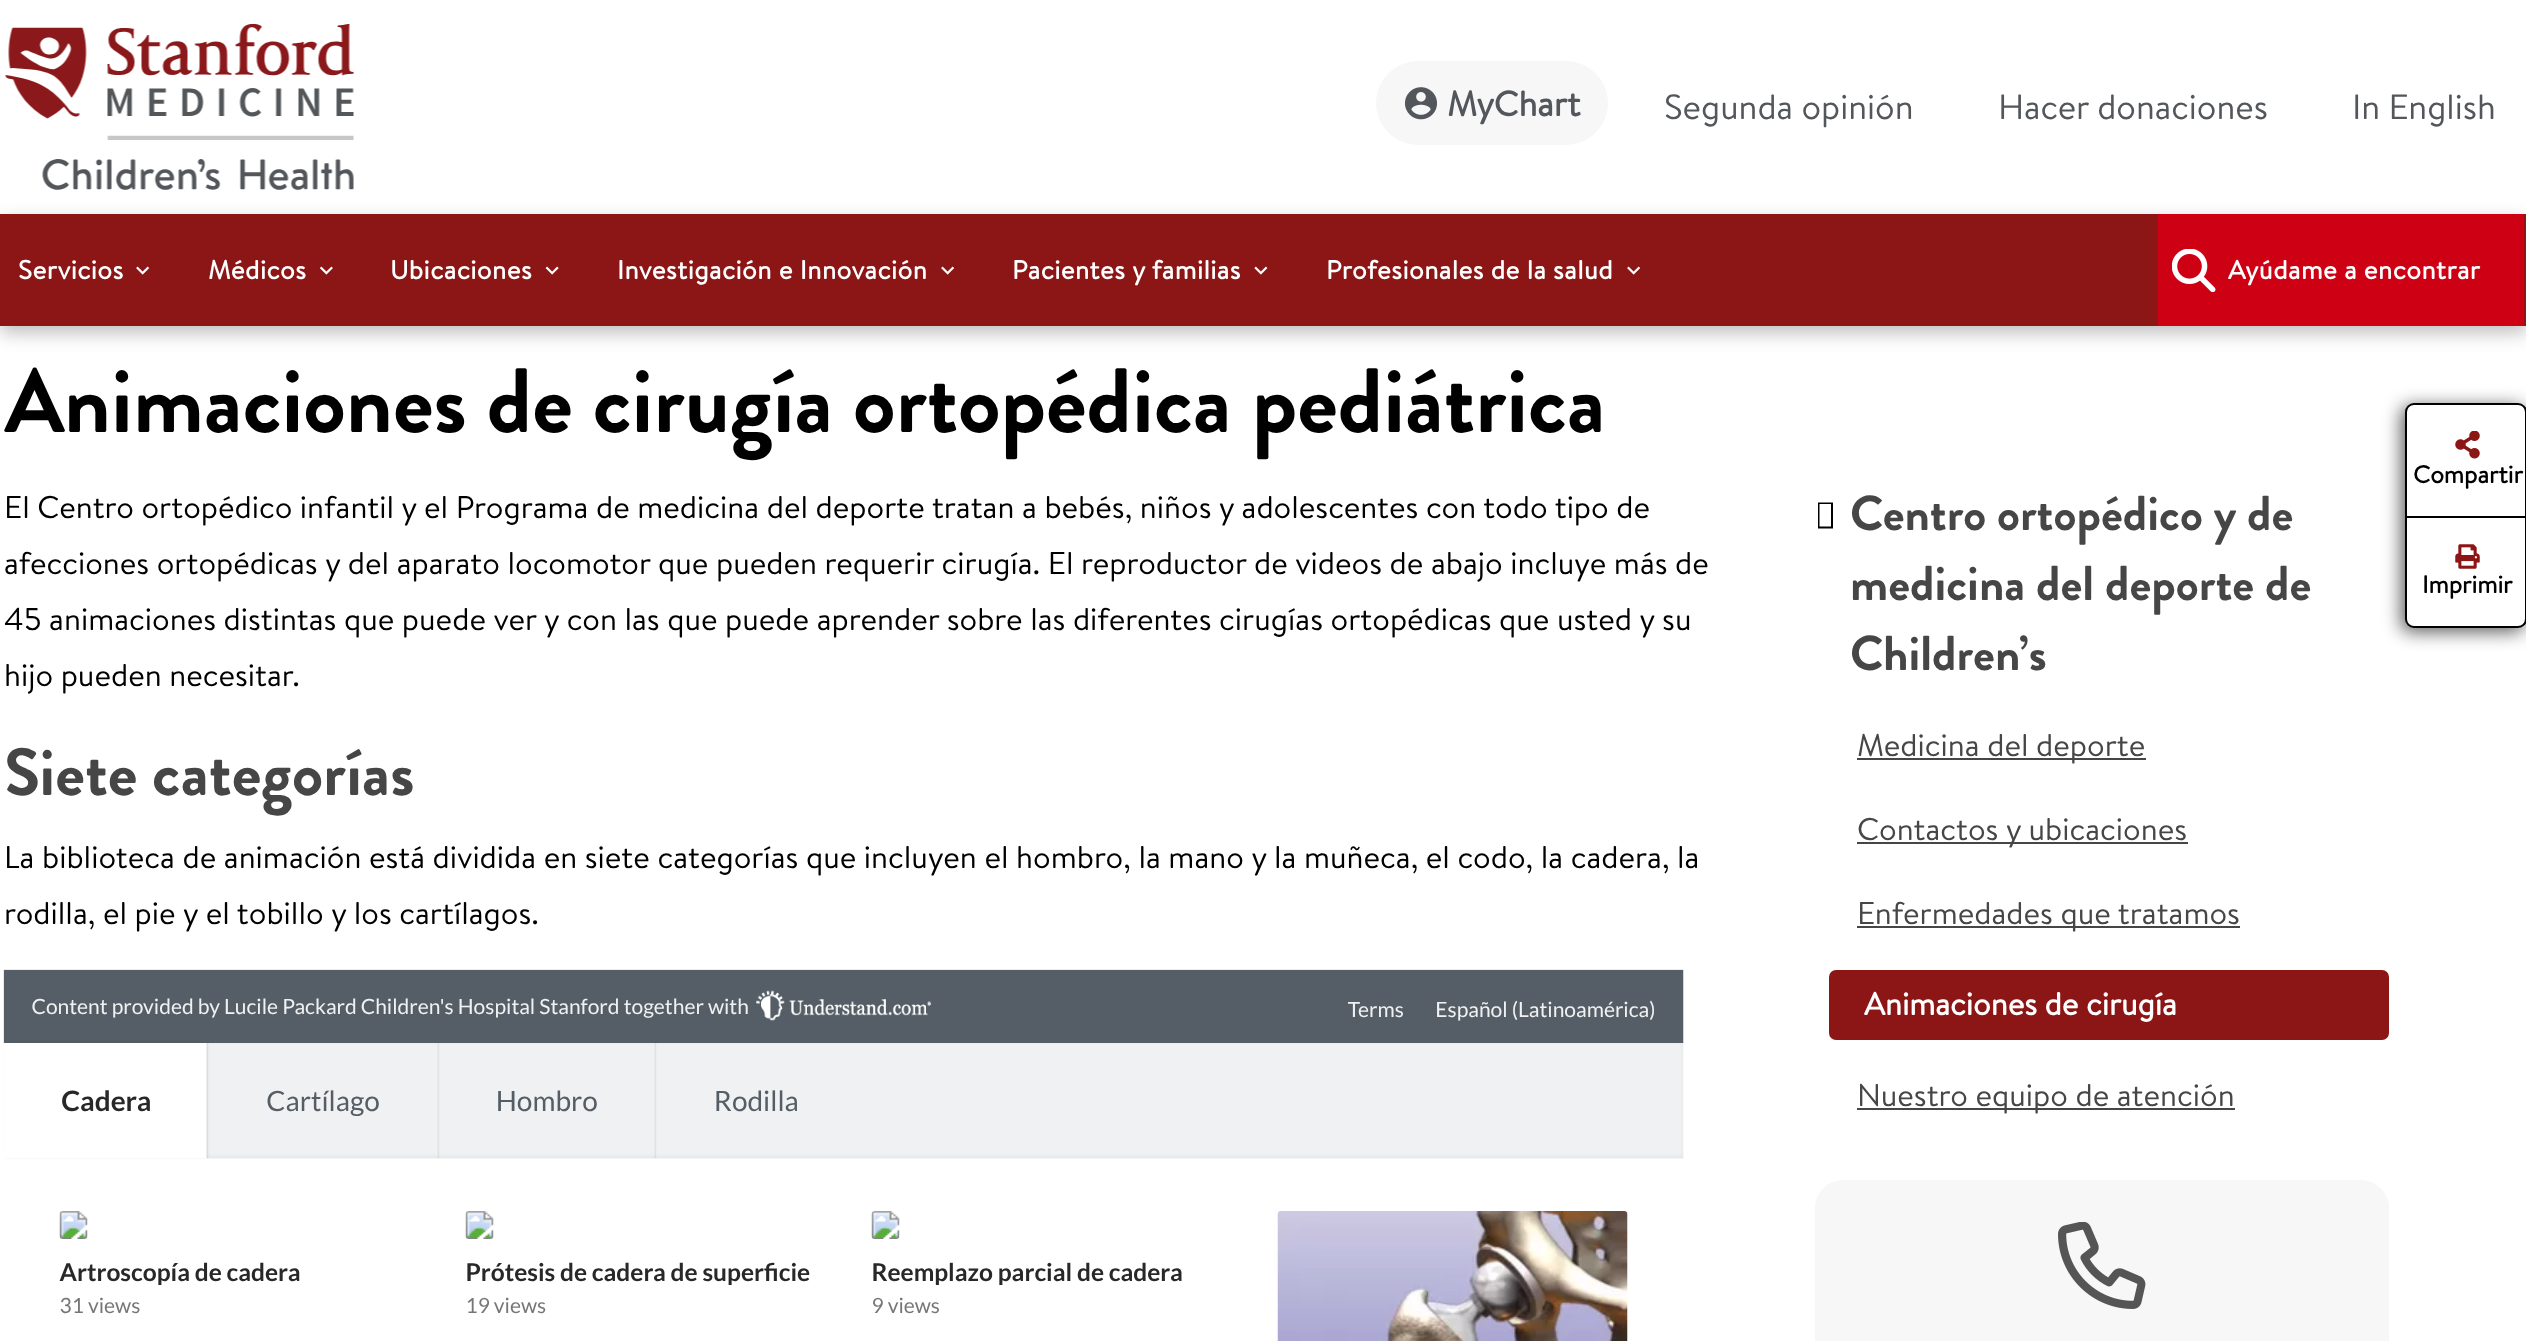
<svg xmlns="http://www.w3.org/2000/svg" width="2526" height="1341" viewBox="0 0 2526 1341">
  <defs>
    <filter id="blur1" x="-50%" y="-200%" width="200%" height="500%"><feGaussianBlur stdDeviation="9"/></filter>
  </defs>
  <rect width="100%" height="100%" fill="#ffffff"/>
  <image x="5" y="23" width="349" height="167" href="img1.png"/>
  <rect x="1376" y="61" width="232" height="84" rx="42" fill="#f7f7f7"/>
  <image x="1404" y="87" width="33" height="33" href="img2.png"/>
  <text x="1447" y="116" font-family="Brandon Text" font-size="35" font-weight="bold" fill="#53565a">MyChart</text>
  <text x="1664" y="119" font-family="Brandon Text" font-size="35" fill="#53565a">Segunda opinión</text>
  <text x="1998" y="119" font-family="Brandon Text" font-size="35" fill="#53565a">Hacer donaciones</text>
  <text x="2352" y="119" font-family="Brandon Text" font-size="35" fill="#53565a">In English</text>
  <rect x="0" y="221" width="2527" height="112" fill="#000000" fill-opacity="0.25" filter="url(#blur1)"/>
  <rect x="0" y="214" width="2526" height="112" fill="#8c1515"/>
  <text x="18" y="279" font-family="Brandon Text" font-size="26.25" font-weight="bold" letter-spacing="0.5" fill="#ffffff">Servicios</text>
  <image x="136" y="266" width="14" height="9" href="img3.png"/>
  <text x="208" y="279" font-family="Brandon Text" font-size="26.25" font-weight="bold" letter-spacing="0.5" fill="#ffffff">Médicos</text>
  <image x="319" y="266" width="14" height="9" href="img4.png"/>
  <text x="390" y="279" font-family="Brandon Text" font-size="26.25" font-weight="bold" letter-spacing="0.5" fill="#ffffff">Ubicaciones</text>
  <image x="545" y="266" width="14" height="9" href="img5.png"/>
  <text x="617" y="279" font-family="Brandon Text" font-size="26.25" font-weight="bold" letter-spacing="0.5" fill="#ffffff">Investigación e Innovación</text>
  <image x="941" y="266" width="14" height="9" href="img3.png"/>
  <text x="1012" y="279" font-family="Brandon Text" font-size="26.25" font-weight="bold" letter-spacing="0.5" fill="#ffffff">Pacientes y familias</text>
  <image x="1254" y="266" width="14" height="9" href="img6.png"/>
  <text x="1326" y="279" font-family="Brandon Text" font-size="26.25" font-weight="bold" letter-spacing="0.5" fill="#ffffff">Profesionales de la salud</text>
  <image x="1627" y="266" width="14" height="9" href="img3.png"/>
  <rect x="2158" y="214" width="366" height="112" fill="#ce0014"/>
  <image x="2172" y="249" width="44" height="43" href="img7.png"/>
  <text x="2228" y="279" font-family="Brandon Text" font-size="26.25" font-weight="bold" letter-spacing="0.5" fill="#ffffff">Ayúdame a encontrar</text>
  <text x="4" y="432" font-family="Brandon Grotesque" font-size="91" fill="#000000">Animaciones de cirugía ortopédica pediátrica</text>
  <text x="4" y="518" font-family="Brandon Text" font-size="31.5" fill="#000000">El Centro ortopédico infantil y el Programa de medicina del deporte tratan a bebés, niños y adolescentes con todo tipo de</text>
  <text x="4" y="574" font-family="Brandon Text" font-size="31.5" fill="#000000">afecciones ortopédicas y del aparato locomotor que pueden requerir cirugía. El reproductor de videos de abajo incluye más de</text>
  <text x="4" y="630" font-family="Brandon Text" font-size="31.5" fill="#000000">45 animaciones distintas que puede ver y con las que puede aprender sobre las diferentes cirugías ortopédicas que usted y su</text>
  <text x="4" y="686" font-family="Brandon Text" font-size="31.5" fill="#000000">hijo pueden necesitar.</text>
  <text x="4" y="795" font-family="Brandon Grotesque" font-size="66.5" fill="#464647">Siete categorías</text>
  <text x="4" y="868" font-family="Brandon Text" font-size="31.5" fill="#000000">La biblioteca de animación está dividida en siete categorías que incluyen el hombro, la mano y la muñeca, el codo, la cadera, la</text>
  <text x="4" y="924" font-family="Brandon Text" font-size="31.5" fill="#000000">rodilla, el pie y el tobillo y los cartílagos.</text>
  <image x="3" y="969" width="1681" height="372" href="img8.png"/>
  <path d="M1818 528.5V502.5H1833V528.5ZM1819.5 526.5H1831V504H1819.5Z" fill="#000000"/>
  <text x="1850" y="530" font-family="Brandon Grotesque" font-size="49" fill="#464647">Centro ortopédico y de</text>
  <text x="1850" y="600" font-family="Brandon Grotesque" font-size="49" fill="#464647">medicina del deporte de</text>
  <text x="1850" y="670" font-family="Brandon Grotesque" font-size="49" fill="#464647">Children’s</text>
  <rect x="1857" y="758" width="289" height="2" fill="#464647"/>
  <text x="1857" y="756" font-family="Brandon Text" font-size="31.5" fill="#464647">Medicina del deporte</text>
  <rect x="1857" y="842" width="331" height="2" fill="#464647"/>
  <text x="1857" y="840" font-family="Brandon Text" font-size="31.5" fill="#464647">Contactos y ubicaciones</text>
  <rect x="1857" y="926" width="383" height="2" fill="#464647"/>
  <text x="1857" y="924" font-family="Brandon Text" font-size="31.5" fill="#464647">Enfermedades que tratamos</text>
  <rect x="1829" y="970" width="560" height="70" rx="7" fill="#8c1515"/>
  <text x="1864" y="1015" font-family="Brandon Text" font-size="31.5" font-weight="bold" fill="#ffffff">Animaciones de cirugía</text>
  <rect x="1857" y="1108" width="378" height="2" fill="#464647"/>
  <text x="1857" y="1106" font-family="Brandon Text" font-size="31.5" fill="#464647">Nuestro equipo de atención</text>
  <rect x="1815" y="1180" width="574" height="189" rx="28" fill="#f7f7f7"/>
  <image x="2058" y="1222" width="88" height="87" href="img9.png"/>
  <rect x="2401" y="406" width="123" height="226" rx="9" fill="#000000" fill-opacity="0.63" filter="url(#blur1)"/>
  <rect x="2406" y="404" width="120" height="223" rx="8" fill="#ffffff" stroke="#000000" stroke-width="2"/>
  <rect x="2406" y="516" width="120" height="2" fill="#000000"/>
  <image x="2455" y="431" width="25" height="28" href="img10.png"/>
  <text x="2413" y="483" font-family="Brandon Text" font-size="24.5" font-weight="bold" fill="#000000">Compartir</text>
  <image x="2455" y="544" width="25" height="25" href="img11.png"/>
  <text x="2422" y="593" font-family="Brandon Text" font-size="24.5" font-weight="bold" fill="#000000">Imprimir</text>
</svg>
